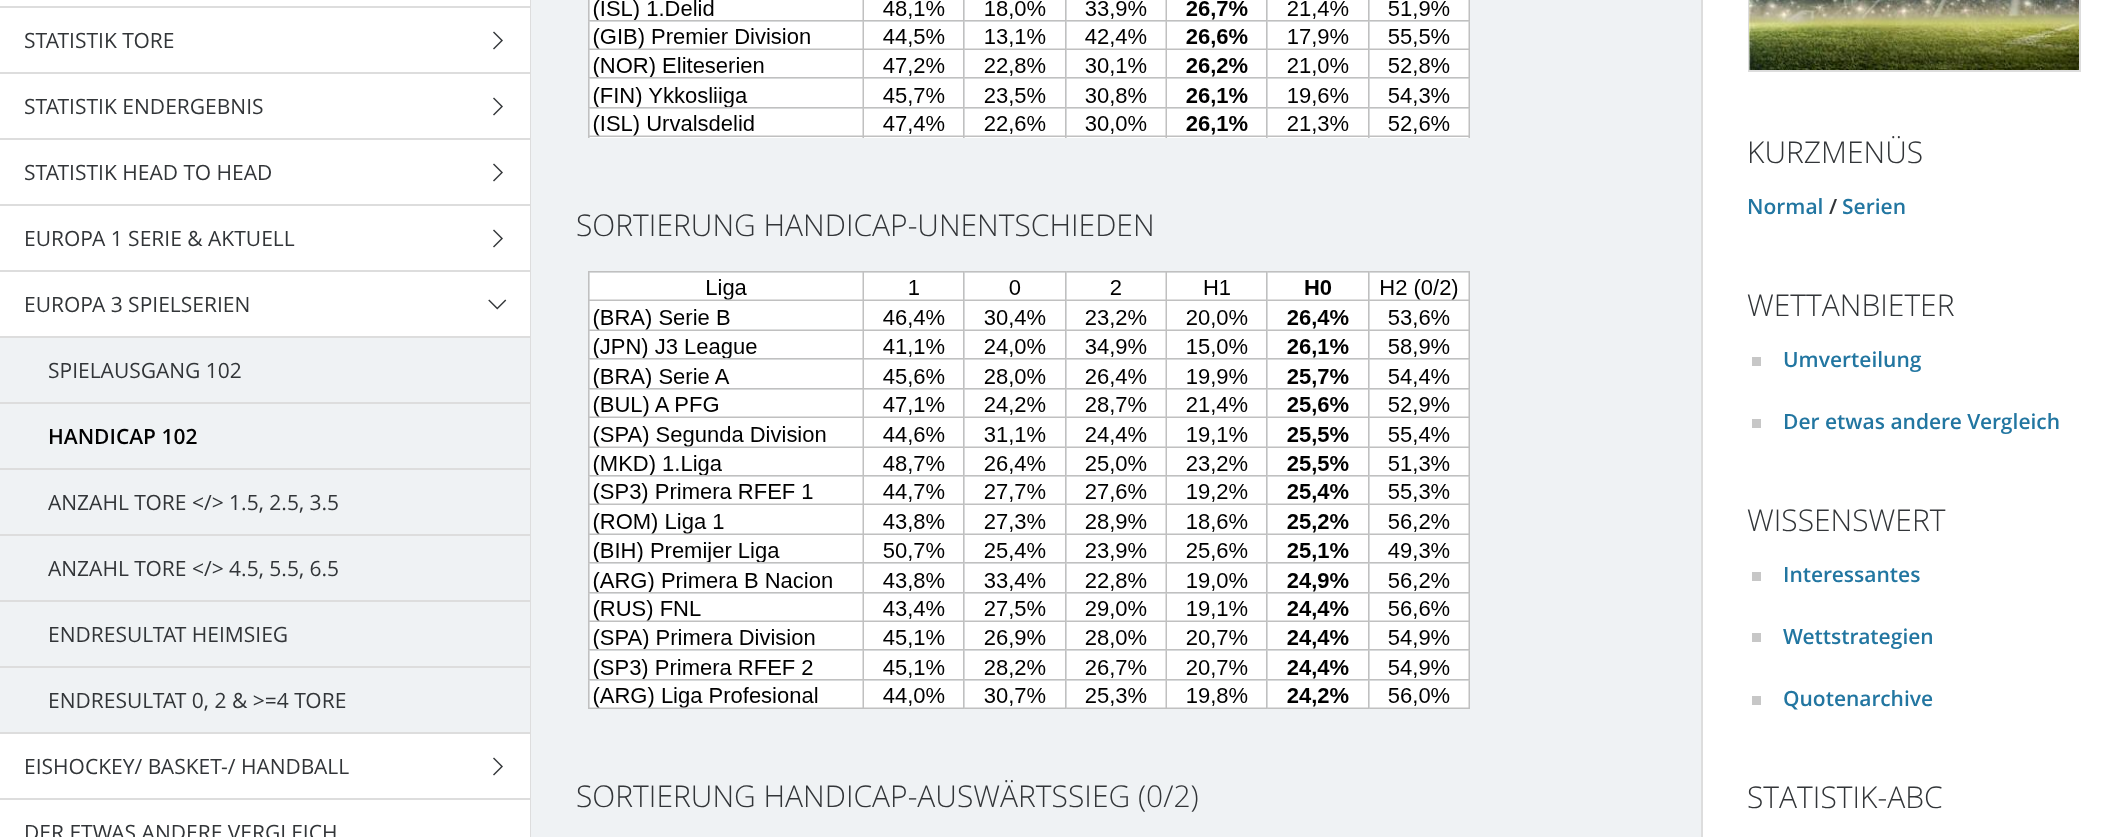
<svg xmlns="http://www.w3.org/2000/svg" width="2125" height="837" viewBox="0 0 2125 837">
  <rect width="100%" height="100%" fill="#ffffff"/>
  <rect x="530" y="0" width="1" height="837" fill="#dddddd"/>
  <rect x="0" y="6" width="530" height="2" fill="#dddddd"/>
  <rect x="0" y="72" width="530" height="2" fill="#dddddd"/>
  <text x="24" y="48" font-family="Open Sans" font-size="21" fill="#323538">STATISTIK TORE</text>
  <image x="493" y="31" width="10" height="19" href="img1.png"/>
  <rect x="0" y="138" width="530" height="2" fill="#dddddd"/>
  <text x="24" y="114" font-family="Open Sans" font-size="21" fill="#323538">STATISTIK ENDERGEBNIS</text>
  <image x="493" y="97" width="10" height="19" href="img1.png"/>
  <rect x="0" y="204" width="530" height="2" fill="#dddddd"/>
  <text x="24" y="180" font-family="Open Sans" font-size="21" fill="#323538">STATISTIK HEAD TO HEAD</text>
  <image x="493" y="163" width="10" height="19" href="img1.png"/>
  <rect x="0" y="270" width="530" height="2" fill="#dddddd"/>
  <text x="24" y="246" font-family="Open Sans" font-size="21" fill="#323538">EUROPA 1 SERIE &amp; AKTUELL</text>
  <image x="493" y="229" width="10" height="19" href="img1.png"/>
  <rect x="0" y="336" width="530" height="2" fill="#dddddd"/>
  <text x="24" y="312" font-family="Open Sans" font-size="21" fill="#323538">EUROPA 3 SPIELSERIEN</text>
  <image x="488" y="299" width="19" height="11" href="img2.png"/>
  <rect x="0" y="338" width="530" height="64" fill="#eff2f4"/>
  <rect x="0" y="402" width="530" height="2" fill="#dddddd"/>
  <text x="48" y="378" font-family="Open Sans" font-size="21" fill="#323538">SPIELAUSGANG 102</text>
  <rect x="0" y="404" width="530" height="64" fill="#eff2f4"/>
  <rect x="0" y="468" width="530" height="2" fill="#dddddd"/>
  <text x="48" y="444" font-family="Open Sans" font-size="21" font-weight="600" fill="#000000">HANDICAP 102</text>
  <rect x="0" y="470" width="530" height="64" fill="#eff2f4"/>
  <rect x="0" y="534" width="530" height="2" fill="#dddddd"/>
  <text x="48" y="510" font-family="Open Sans" font-size="21" fill="#323538">ANZAHL TORE &lt;/&gt; 1.5, 2.5, 3.5</text>
  <rect x="0" y="536" width="530" height="64" fill="#eff2f4"/>
  <rect x="0" y="600" width="530" height="2" fill="#dddddd"/>
  <text x="48" y="576" font-family="Open Sans" font-size="21" fill="#323538">ANZAHL TORE &lt;/&gt; 4.5, 5.5, 6.5</text>
  <rect x="0" y="602" width="530" height="64" fill="#eff2f4"/>
  <rect x="0" y="666" width="530" height="2" fill="#dddddd"/>
  <text x="48" y="642" font-family="Open Sans" font-size="21" fill="#323538">ENDRESULTAT HEIMSIEG</text>
  <rect x="0" y="668" width="530" height="64" fill="#eff2f4"/>
  <rect x="0" y="732" width="530" height="2" fill="#dddddd"/>
  <text x="48" y="708" font-family="Open Sans" font-size="21" fill="#323538">ENDRESULTAT 0, 2 &amp; &gt;=4 TORE</text>
  <rect x="0" y="798" width="530" height="2" fill="#dddddd"/>
  <text x="24" y="774" font-family="Open Sans" font-size="21" fill="#323538">EISHOCKEY/ BASKET-/ HANDBALL</text>
  <image x="493" y="757" width="10" height="19" href="img1.png"/>
  <text x="24" y="840" font-family="Open Sans" font-size="21" fill="#323538">DER ETWAS ANDERE VERGLEICH</text>
  <rect x="531" y="0" width="1170" height="837" fill="#eff2f4"/>
  <image x="588" y="0" width="882" height="138" href="img3.png"/>
  <text x="576" y="236" font-family="Open Sans" font-size="30" font-weight="300" fill="#323538">SORTIERUNG HANDICAP-UNENTSCHIEDEN</text>
  <image x="588" y="271" width="882" height="438" href="img4.png"/>
  <text x="576" y="807" font-family="Open Sans" font-size="30" font-weight="300" fill="#323538">SORTIERUNG HANDICAP-AUSWÄRTSSIEG (0/2)</text>
  <rect x="1701" y="0" width="2" height="837" fill="#dddddd"/>
  <rect x="1749" y="-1" width="331" height="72" fill="none" stroke="#dddddd" stroke-width="2"/>
  <image x="1749" y="0" width="330" height="70" href="img5.png"/>
  <text x="1747" y="163" font-family="Open Sans" font-size="30" font-weight="300" fill="#323538">KURZMENÜS</text>
  <text x="1747" y="214" font-family="Open Sans" font-size="21" font-weight="600" fill="#2276a1">Normal</text>
  <text x="1829" y="214" font-family="Open Sans" font-size="21" font-weight="600" fill="#323538">/</text>
  <text x="1842" y="214" font-family="Open Sans" font-size="21" font-weight="600" fill="#2276a1">Serien</text>
  <text x="1747" y="316" font-family="Open Sans" font-size="30" font-weight="300" fill="#323538">WETTANBIETER</text>
  <rect x="1752" y="357" width="9" height="9" fill="#c7c7c7"/>
  <text x="1783" y="367" font-family="Open Sans" font-size="21" font-weight="600" fill="#2276a1">Umverteilung</text>
  <rect x="1752" y="419" width="9" height="9" fill="#c7c7c7"/>
  <text x="1783" y="429" font-family="Open Sans" font-size="21" font-weight="600" fill="#2276a1">Der etwas andere Vergleich</text>
  <text x="1747" y="531" font-family="Open Sans" font-size="30" font-weight="300" fill="#323538">WISSENSWERT</text>
  <rect x="1752" y="572" width="9" height="9" fill="#c7c7c7"/>
  <text x="1783" y="582" font-family="Open Sans" font-size="21" font-weight="600" fill="#2276a1">Interessantes</text>
  <rect x="1752" y="633" width="9" height="9" fill="#c7c7c7"/>
  <text x="1783" y="644" font-family="Open Sans" font-size="21" font-weight="600" fill="#2276a1">Wettstrategien</text>
  <rect x="1752" y="696" width="9" height="9" fill="#c7c7c7"/>
  <text x="1783" y="706" font-family="Open Sans" font-size="21" font-weight="600" fill="#2276a1">Quotenarchive</text>
  <text x="1747" y="808" font-family="Open Sans" font-size="30" font-weight="300" fill="#323538">STATISTIK-ABC</text>
</svg>
